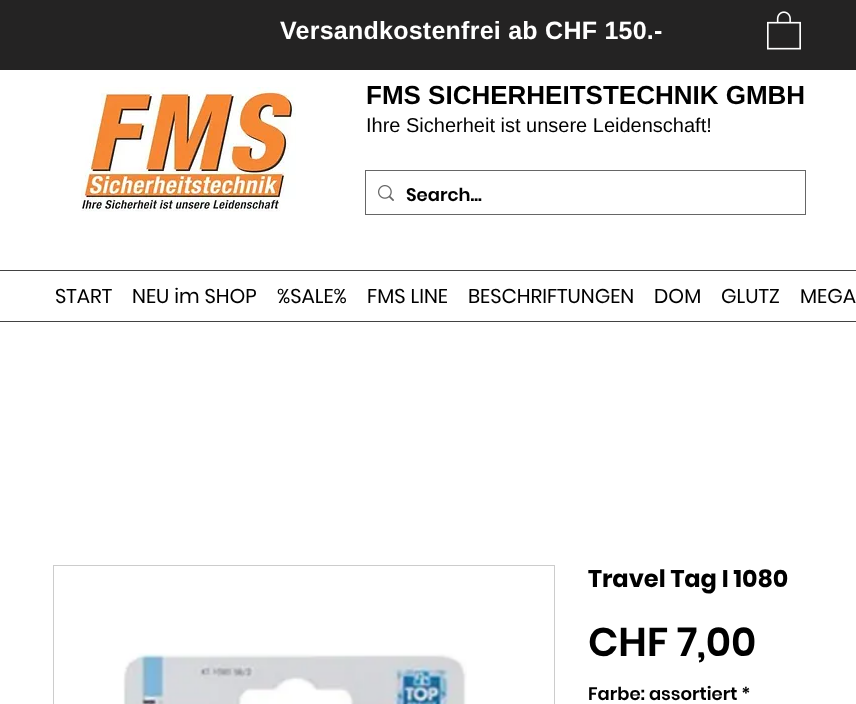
<svg xmlns="http://www.w3.org/2000/svg" width="856" height="704" viewBox="0 0 856 704">
  <rect width="100%" height="100%" fill="#ffffff"/>
  <rect x="0" y="0" width="856" height="70" fill="#242323"/>
  <text x="280" y="39" font-family="Liberation Sans" font-size="25" font-weight="bold" letter-spacing="0.25" fill="#ffffff">Versandkostenfrei ab CHF 150.-</text>
  <image x="767" y="11" width="34" height="39" href="img1.png"/>
  <image x="81" y="87" width="215" height="125" href="img2.png"/>
  <text x="366" y="104" font-family="Liberation Sans" font-size="26" font-weight="bold" fill="#000000">FMS SICHERHEITSTECHNIK GMBH</text>
  <text x="366" y="132" font-family="Liberation Sans" font-size="20" fill="#000000">Ihre Sicherheit ist unsere Leidenschaft!</text>
  <rect x="365.5" y="170.5" width="440" height="44" fill="none" stroke="#666666"/>
  <image x="378" y="185" width="16" height="16" href="img3.png"/>
  <text x="406" y="201" font-family="Poppins" font-size="18" font-weight="600" fill="#000000">Search...</text>
  <rect x="0" y="270" width="856" height="1" fill="#424242"/>
  <text x="55" y="303" font-family="Poppins" font-size="20" fill="#000000">START</text>
  <text x="132" y="303" font-family="Poppins" font-size="20" fill="#000000">NEU im SHOP</text>
  <text x="277" y="303" font-family="Poppins" font-size="20" fill="#000000">%SALE%</text>
  <text x="367" y="303" font-family="Poppins" font-size="20" fill="#000000">FMS LINE</text>
  <text x="468" y="303" font-family="Poppins" font-size="20" fill="#000000">BESCHRIFTUNGEN</text>
  <text x="654" y="303" font-family="Poppins" font-size="20" fill="#000000">DOM</text>
  <text x="721" y="303" font-family="Poppins" font-size="20" fill="#000000">GLUTZ</text>
  <text x="800" y="303" font-family="Poppins" font-size="20" fill="#000000">MEGA</text>
  <rect x="0" y="321" width="856" height="1" fill="#424242"/>
  <rect x="53.5" y="565.5" width="501" height="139" fill="none" stroke="#cccccc"/>
  <image x="123" y="653" width="344" height="51" href="img4.png"/>
  <text x="588" y="587" font-family="Poppins" font-size="24" font-weight="bold" fill="#000000">Travel Tag I 1080</text>
  <text x="588" y="656" font-family="Poppins" font-size="40" font-weight="600" fill="#000000">CHF 7,00</text>
  <text x="588" y="700" font-family="Poppins" font-size="18" font-weight="600" fill="#000000">Farbe: assortiert *</text>
</svg>
